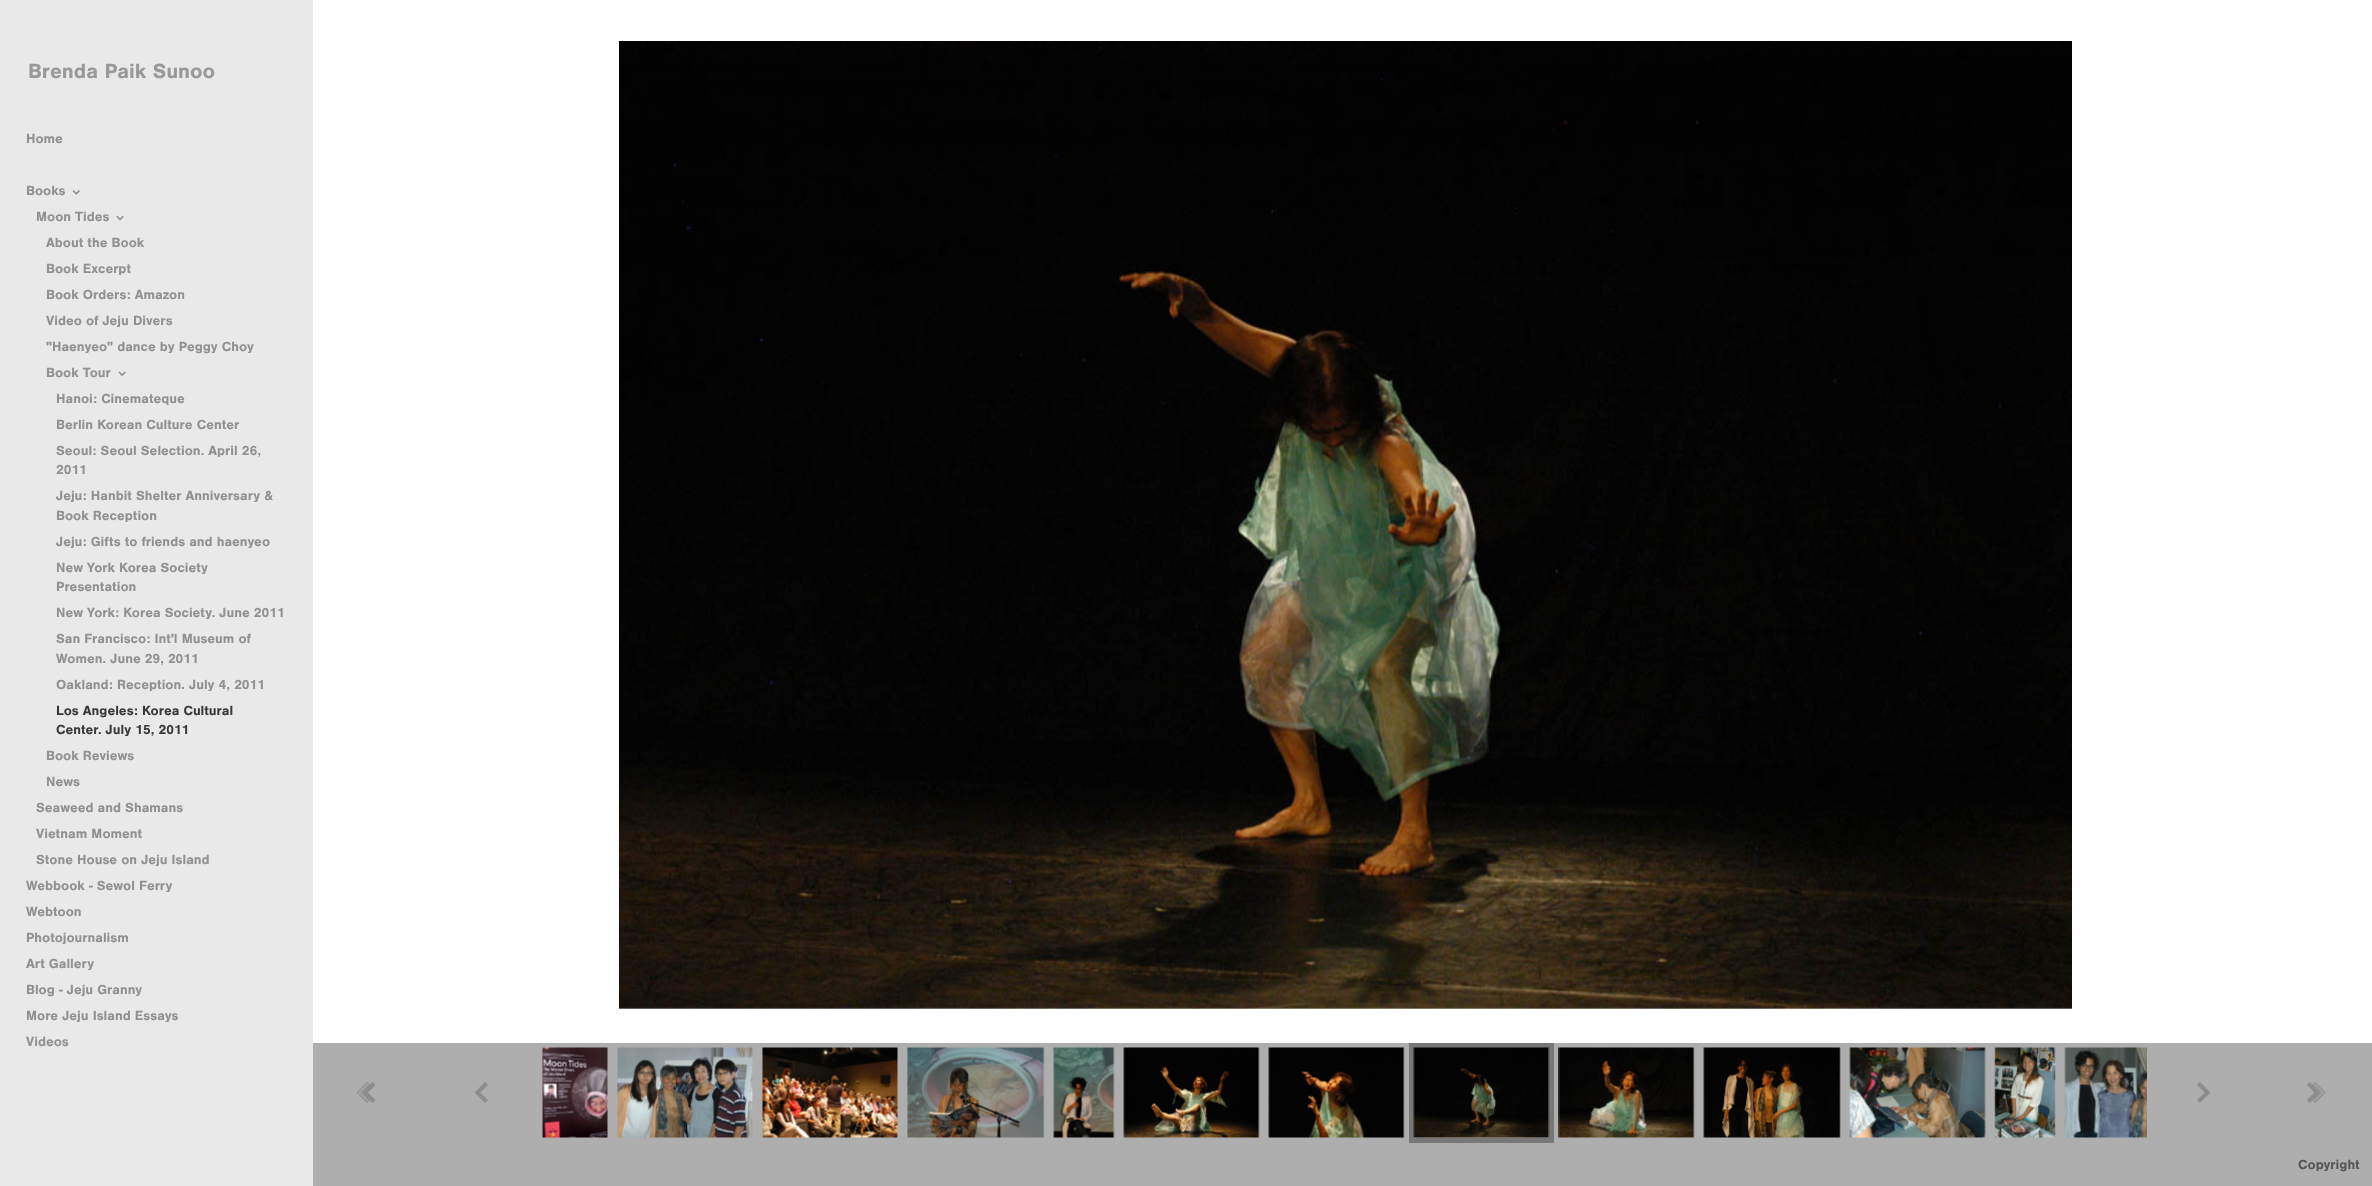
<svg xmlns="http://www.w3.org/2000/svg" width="2372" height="1186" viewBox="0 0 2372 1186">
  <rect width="100%" height="100%" fill="#ffffff"/>
  <rect x="0" y="0" width="313" height="1186" fill="#e9e9e9"/>
  <text x="28" y="78" font-family="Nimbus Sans" font-size="21.25" font-weight="bold" fill="#999999">Brenda Paik Sunoo</text>
  <text x="26" y="143" font-family="Nimbus Sans" font-size="13.75" font-weight="bold" fill="#919191">Home</text>
  <text x="26" y="195" font-family="Nimbus Sans" font-size="13.75" font-weight="bold" fill="#919191">Books</text>
  <image x="72" y="190" width="8" height="5" href="img1.png"/>
  <text x="36" y="221" font-family="Nimbus Sans" font-size="13.75" font-weight="bold" fill="#919191">Moon Tides</text>
  <image x="116" y="215" width="8" height="6" href="img2.png"/>
  <text x="46" y="247" font-family="Nimbus Sans" font-size="13.75" font-weight="bold" fill="#919191">About the Book</text>
  <text x="46" y="273" font-family="Nimbus Sans" font-size="13.75" font-weight="bold" fill="#919191">Book Excerpt</text>
  <text x="46" y="299" font-family="Nimbus Sans" font-size="13.75" font-weight="bold" fill="#919191">Book Orders: Amazon</text>
  <text x="46" y="325" font-family="Nimbus Sans" font-size="13.75" font-weight="bold" fill="#919191">Video of Jeju Divers</text>
  <text x="46" y="351" font-family="Nimbus Sans" font-size="13.75" font-weight="bold" fill="#919191">"Haenyeo" dance by Peggy Choy</text>
  <text x="46" y="377" font-family="Nimbus Sans" font-size="13.75" font-weight="bold" fill="#919191">Book Tour</text>
  <image x="118" y="371" width="8" height="6" href="img3.png"/>
  <text x="56" y="403" font-family="Nimbus Sans" font-size="13.75" font-weight="bold" fill="#919191">Hanoi: Cinemateque</text>
  <text x="56" y="429" font-family="Nimbus Sans" font-size="13.75" font-weight="bold" fill="#919191">Berlin Korean Culture Center</text>
  <text x="56" y="455" font-family="Nimbus Sans" font-size="13.75" font-weight="bold" fill="#919191">Seoul: Seoul Selection. April 26,</text>
  <text x="56" y="474" font-family="Nimbus Sans" font-size="13.75" font-weight="bold" fill="#919191">2011</text>
  <text x="56" y="500" font-family="Nimbus Sans" font-size="13.75" font-weight="bold" fill="#919191">Jeju: Hanbit Shelter Anniversary &amp;</text>
  <text x="56" y="520" font-family="Nimbus Sans" font-size="13.75" font-weight="bold" fill="#919191">Book Reception</text>
  <text x="56" y="546" font-family="Nimbus Sans" font-size="13.75" font-weight="bold" fill="#919191">Jeju: Gifts to friends and haenyeo</text>
  <text x="56" y="572" font-family="Nimbus Sans" font-size="13.75" font-weight="bold" fill="#919191">New York Korea Society</text>
  <text x="56" y="591" font-family="Nimbus Sans" font-size="13.75" font-weight="bold" fill="#919191">Presentation</text>
  <text x="56" y="617" font-family="Nimbus Sans" font-size="13.75" font-weight="bold" fill="#919191">New York: Korea Society. June 2011</text>
  <text x="56" y="643" font-family="Nimbus Sans" font-size="13.75" font-weight="bold" fill="#919191">San Francisco: Int'l Museum of</text>
  <text x="56" y="663" font-family="Nimbus Sans" font-size="13.75" font-weight="bold" fill="#919191">Women. June 29, 2011</text>
  <text x="56" y="689" font-family="Nimbus Sans" font-size="13.75" font-weight="bold" fill="#919191">Oakland: Reception. July 4, 2011</text>
  <text x="56" y="715" font-family="Nimbus Sans" font-size="13.75" font-weight="bold" fill="#393939">Los Angeles: Korea Cultural</text>
  <text x="56" y="734" font-family="Nimbus Sans" font-size="13.75" font-weight="bold" fill="#393939">Center. July 15, 2011</text>
  <text x="46" y="760" font-family="Nimbus Sans" font-size="13.75" font-weight="bold" fill="#919191">Book Reviews</text>
  <text x="46" y="786" font-family="Nimbus Sans" font-size="13.75" font-weight="bold" fill="#919191">News</text>
  <text x="36" y="812" font-family="Nimbus Sans" font-size="13.75" font-weight="bold" fill="#919191">Seaweed and Shamans</text>
  <text x="36" y="838" font-family="Nimbus Sans" font-size="13.75" font-weight="bold" fill="#919191">Vietnam Moment</text>
  <text x="36" y="864" font-family="Nimbus Sans" font-size="13.75" font-weight="bold" fill="#919191">Stone House on Jeju Island</text>
  <text x="26" y="890" font-family="Nimbus Sans" font-size="13.75" font-weight="bold" fill="#919191">Webbook - Sewol Ferry</text>
  <text x="26" y="916" font-family="Nimbus Sans" font-size="13.75" font-weight="bold" fill="#919191">Webtoon</text>
  <text x="26" y="942" font-family="Nimbus Sans" font-size="13.75" font-weight="bold" fill="#919191">Photojournalism</text>
  <text x="26" y="968" font-family="Nimbus Sans" font-size="13.75" font-weight="bold" fill="#919191">Art Gallery</text>
  <text x="26" y="994" font-family="Nimbus Sans" font-size="13.75" font-weight="bold" fill="#919191">Blog - Jeju Granny</text>
  <text x="26" y="1020" font-family="Nimbus Sans" font-size="13.75" font-weight="bold" fill="#919191">More Jeju Island Essays</text>
  <text x="26" y="1046" font-family="Nimbus Sans" font-size="13.75" font-weight="bold" fill="#919191">Videos</text>
  <image x="619" y="41" width="1453" height="968" href="img4.png"/>
  <rect x="313" y="1043" width="2059" height="143" fill="#aeaeae"/>
  <image x="356" y="1082" width="20" height="21" href="img5.png"/>
  <image x="474" y="1082" width="14" height="21" href="img6.png"/>
  <image x="542" y="1047" width="66" height="91" href="img7.png"/>
  <image x="617" y="1047" width="136" height="91" href="img8.png"/>
  <image x="762" y="1047" width="136" height="91" href="img9.png"/>
  <image x="907" y="1047" width="138" height="91" href="img10.png"/>
  <image x="1053" y="1047" width="62" height="91" href="img11.png"/>
  <image x="1123" y="1047" width="137" height="91" href="img12.png"/>
  <image x="1268" y="1047" width="137" height="91" href="img13.png"/>
  <rect x="1411.5" y="1045.5" width="140" height="95" fill="none" stroke="#777777" stroke-width="5"/>
  <image x="1413" y="1047" width="137" height="91" href="img14.png"/>
  <image x="1558" y="1047" width="137" height="91" href="img15.png"/>
  <image x="1703" y="1047" width="138" height="91" href="img16.png"/>
  <image x="1849" y="1047" width="137" height="91" href="img17.png"/>
  <image x="1994" y="1047" width="62" height="91" href="img18.png"/>
  <image x="2064" y="1047" width="83" height="91" href="img19.png"/>
  <image x="2197" y="1082" width="14" height="21" href="img20.png"/>
  <image x="2307" y="1082" width="19" height="21" href="img21.png"/>
  <text x="2298" y="1169" font-family="Nimbus Sans" font-size="13.75" font-weight="bold" fill="#565656">Copyright</text>
</svg>
